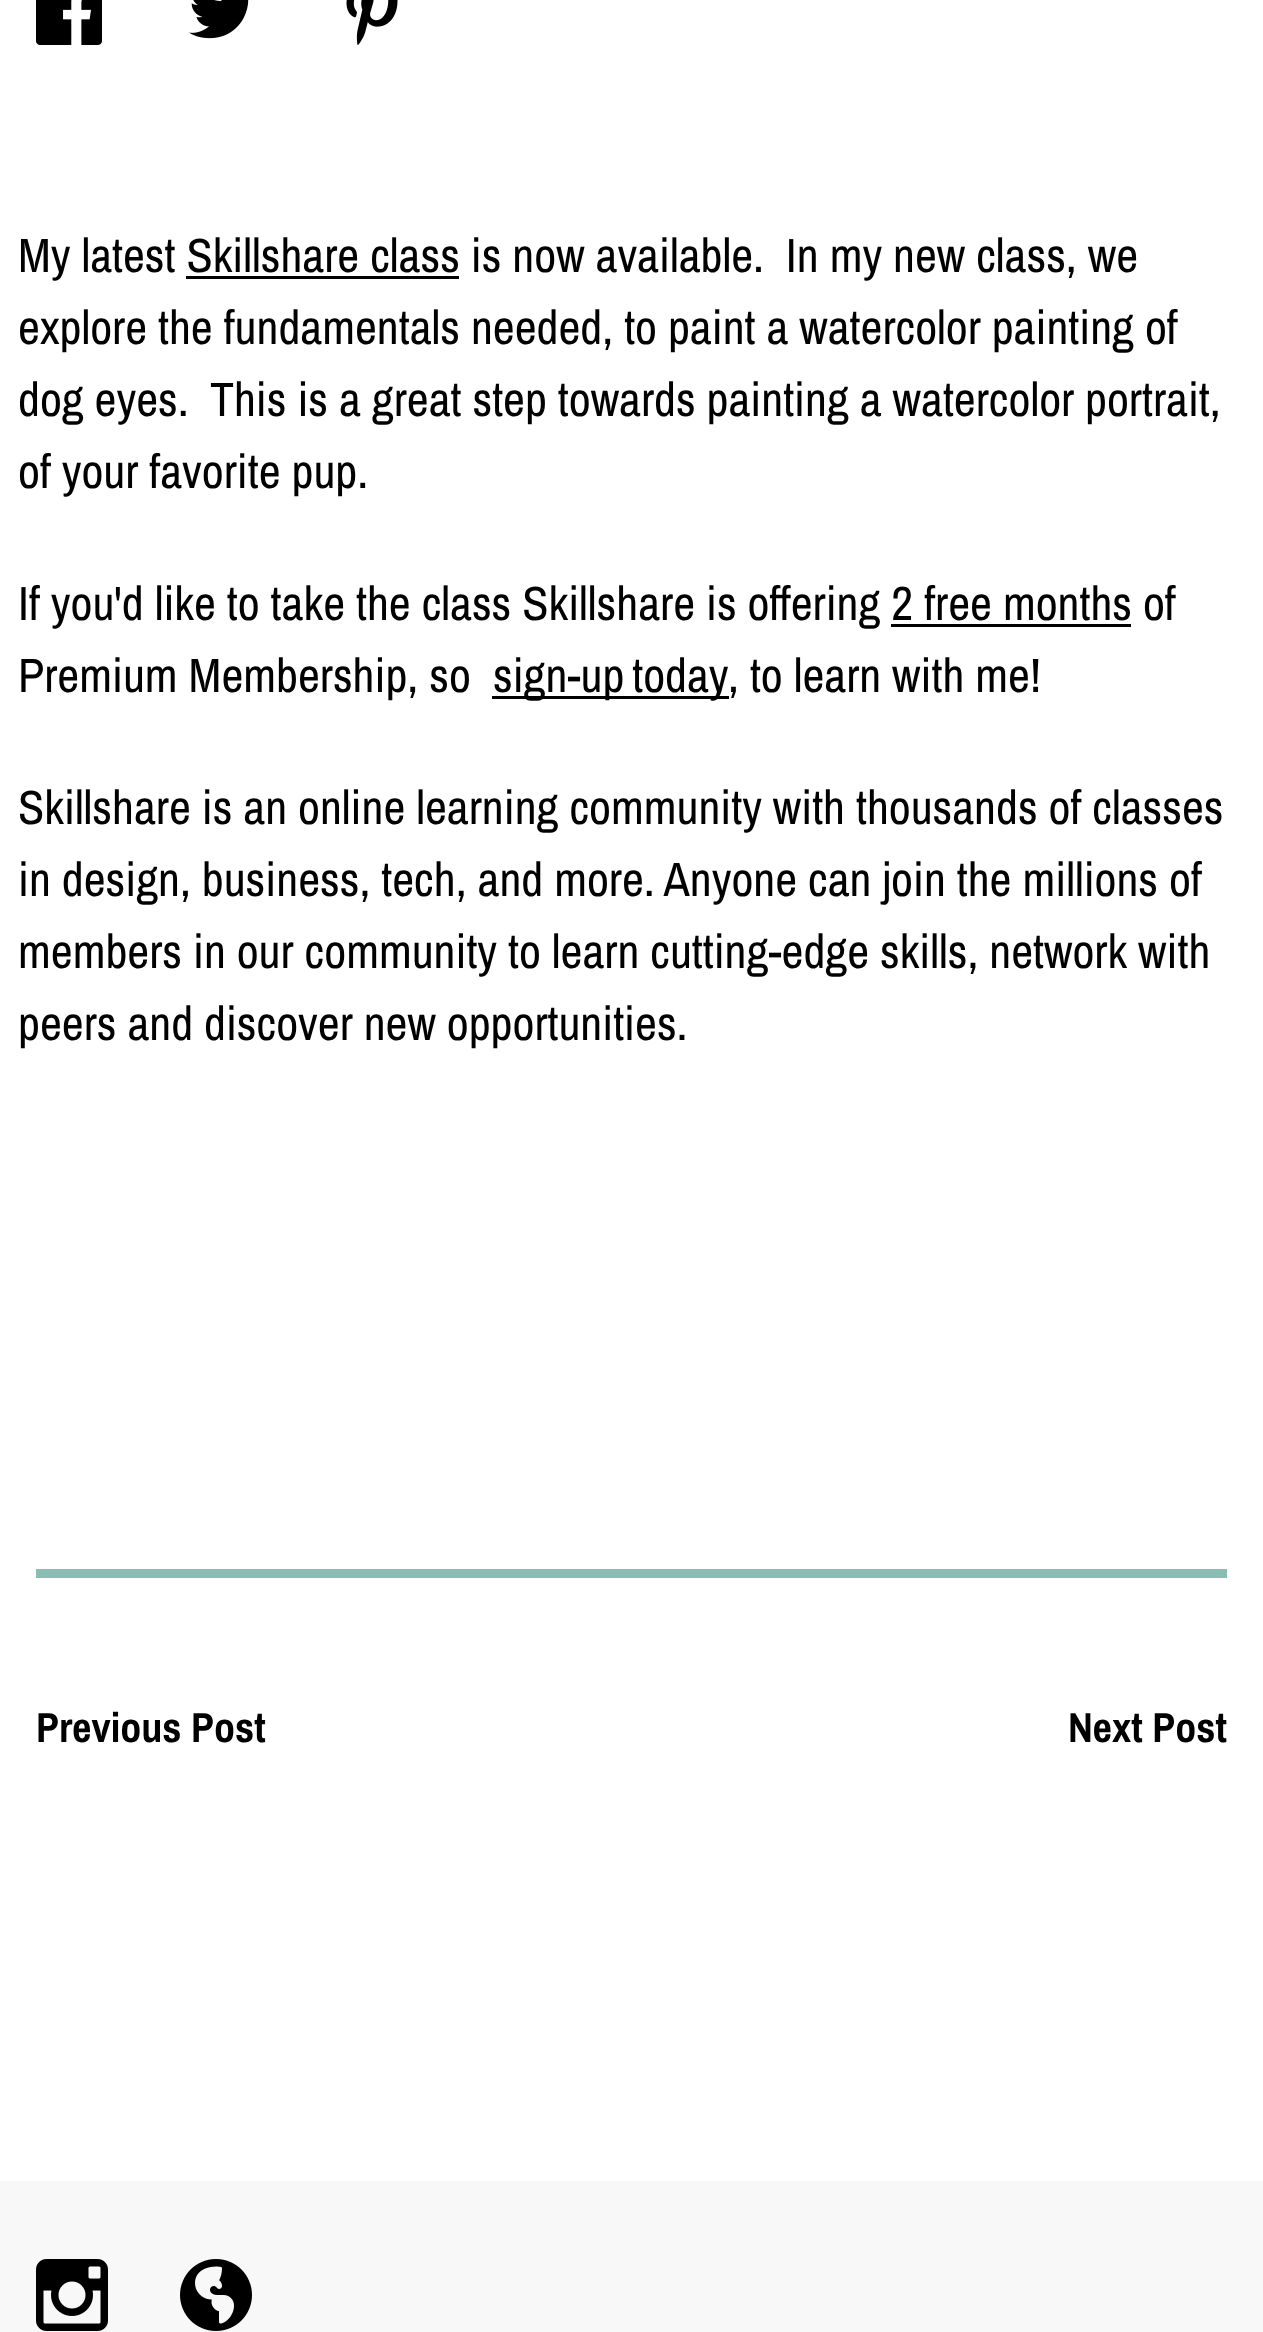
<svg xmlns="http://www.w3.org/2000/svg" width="1263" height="2332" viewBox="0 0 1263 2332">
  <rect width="100%" height="100%" fill="#ffffff"/>
  <image x="36" y="0" width="66" height="45" href="img1.png"/>
  <image x="189" y="0" width="60" height="39" href="img2.png"/>
  <image x="346" y="0" width="52" height="45" href="img3.png"/>
  <text x="18" y="272" font-family="Archivo Narrow" font-size="48" fill="#000000" xml:space="preserve">My latest Skillshare class is now available.  In my new class, we</text>
  <rect x="186" y="276" width="273" height="3" fill="#000000"/>
  <text x="18" y="344" font-family="Archivo Narrow" font-size="48" fill="#000000">explore the fundamentals needed, to paint a watercolor painting of</text>
  <text x="18" y="416" font-family="Archivo Narrow" font-size="48" fill="#000000" xml:space="preserve">dog eyes.  This is a great step towards painting a watercolor portrait,</text>
  <text x="18" y="488" font-family="Archivo Narrow" font-size="48" fill="#000000">of your favorite pup.</text>
  <text x="18" y="620" font-family="Archivo Narrow" font-size="48" fill="#000000">If you'd like to take the class Skillshare is offering 2 free months of</text>
  <rect x="891" y="624" width="240" height="3" fill="#000000"/>
  <text x="18" y="692" font-family="Archivo Narrow" font-size="48" fill="#000000">Premium Membership, so</text>
  <rect x="492" y="696" width="237" height="3" fill="#000000"/>
  <text x="493" y="692" word-spacing="-3" font-family="Archivo Narrow" font-size="48" fill="#000000">sign-up today</text>
  <text x="728" y="692" font-family="Archivo Narrow" font-size="48" fill="#000000">, to learn with me!</text>
  <text x="18" y="824" font-family="Archivo Narrow" font-size="48" fill="#000000">Skillshare is an online learning community with thousands of classes</text>
  <text x="18" y="896" font-family="Archivo Narrow" font-size="48" fill="#000000">in design, business, tech, and more. Anyone can join the millions of</text>
  <text x="18" y="968" font-family="Archivo Narrow" font-size="48" fill="#000000">members in our community to learn cutting-edge skills, network with</text>
  <text x="18" y="1040" font-family="Archivo Narrow" font-size="48" fill="#000000">peers and discover new opportunities.</text>
  <rect x="36" y="1569" width="1191" height="9" fill="#89bcb5"/>
  <text x="36" y="1742" font-family="Archivo Narrow" font-size="42" font-weight="bold" fill="#000000">Previous Post</text>
  <text x="1068" y="1742" font-family="Archivo Narrow" font-size="42" font-weight="bold" fill="#000000">Next Post</text>
  <rect x="0" y="2181" width="1263" height="151" fill="#f8f8f8"/>
  <image x="36" y="2259" width="72" height="72" href="img4.png"/>
  <image x="180" y="2259" width="72" height="72" href="img5.png"/>
</svg>
